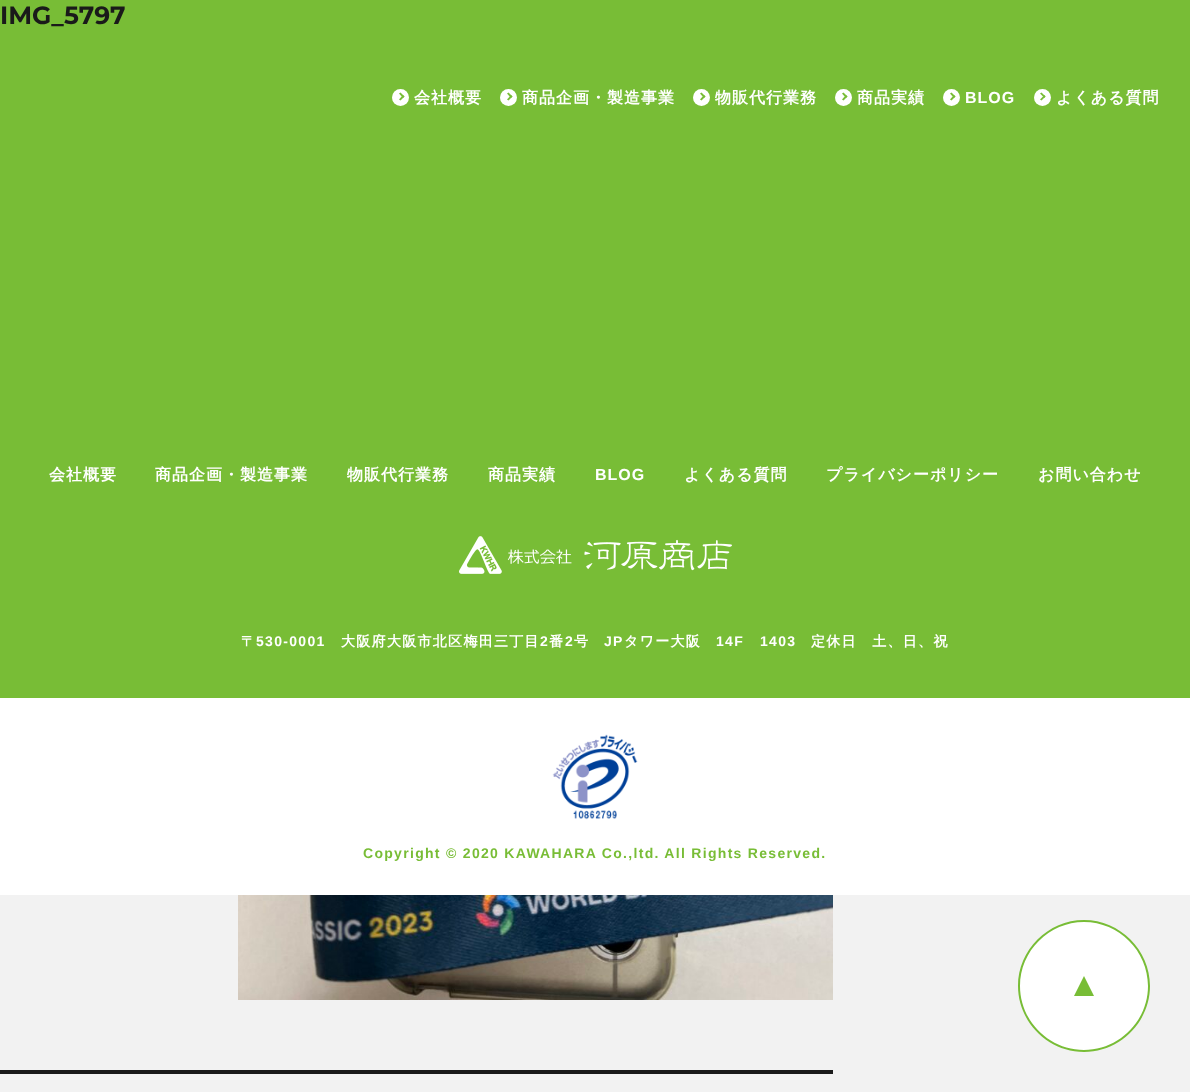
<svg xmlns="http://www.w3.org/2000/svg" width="1190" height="1092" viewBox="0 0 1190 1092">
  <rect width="100%" height="100%" fill="#f2f2f2"/>
  <rect x="0" y="0" width="1190" height="698" fill="#78bd36"/>
  <text x="0" y="24" font-family="Montserrat" font-size="25" font-weight="bold" fill="#1a1a1a">IMG_5797</text>
  <image x="238" y="895" width="595" height="105" href="img1.png"/>
  <rect x="0" y="1070" width="833" height="4" fill="#1a1a1a"/>
  <circle cx="400.5" cy="97.5" r="8.5" fill="#ffffff"/>
  <text x="414" y="103" font-family="WenQuanYi Zen Hei" font-size="16" font-weight="bold" letter-spacing="1" fill="#ffffff">会社概要</text>
  <path d="M400.5 92.5L404.5 96.5L403 98L399 93.5Z" fill="#78bd36"/>
  <path d="M403 95L404.5 96.5L400.5 100.5L399 99.5Z" fill="#78bd36"/>
  <circle cx="508.5" cy="97.5" r="8.5" fill="#ffffff"/>
  <text x="522" y="103" font-family="WenQuanYi Zen Hei" font-size="16" font-weight="bold" letter-spacing="1" fill="#ffffff">商品企画・製造事業</text>
  <path d="M508.5 92.5L512.5 96.5L511 98L507 93.5Z" fill="#78bd36"/>
  <path d="M511 95L512.5 96.5L508.5 100.5L507 99.5Z" fill="#78bd36"/>
  <circle cx="701.5" cy="97.5" r="8.5" fill="#ffffff"/>
  <text x="715" y="103" font-family="WenQuanYi Zen Hei" font-size="16" font-weight="bold" letter-spacing="1" fill="#ffffff">物販代行業務</text>
  <path d="M701.5 92.5L705.5 96.5L704 98L700 93.5Z" fill="#78bd36"/>
  <path d="M704 95L705.5 96.5L701.5 100.5L700 99.5Z" fill="#78bd36"/>
  <circle cx="843.5" cy="97.5" r="8.5" fill="#ffffff"/>
  <text x="857" y="103" font-family="WenQuanYi Zen Hei" font-size="16" font-weight="bold" letter-spacing="1" fill="#ffffff">商品実績</text>
  <path d="M843.5 92.5L847.5 96.5L846 98L842 93.5Z" fill="#78bd36"/>
  <path d="M846 95L847.5 96.5L843.5 100.5L842 99.5Z" fill="#78bd36"/>
  <circle cx="951.5" cy="97.5" r="8.5" fill="#ffffff"/>
  <text x="965" y="103" font-family="Liberation Sans" font-size="16" font-weight="bold" letter-spacing="1" fill="#ffffff">BLOG</text>
  <path d="M951.5 92.5L955.5 96.5L954 98L950 93.5Z" fill="#78bd36"/>
  <path d="M954 95L955.5 96.5L951.5 100.5L950 99.5Z" fill="#78bd36"/>
  <circle cx="1042.5" cy="97.5" r="8.5" fill="#ffffff"/>
  <text x="1056" y="103" font-family="WenQuanYi Zen Hei" font-size="16" font-weight="bold" letter-spacing="1" fill="#ffffff">よくある質問</text>
  <path d="M1041.5 92.5L1045.5 96.5L1044.5 98L1040 93.5Z" fill="#78bd36"/>
  <path d="M1044.5 95L1045.5 96.5L1041.5 100.5L1040 99.5Z" fill="#78bd36"/>
  <text x="49" y="480" font-family="WenQuanYi Zen Hei" font-size="16" font-weight="bold" letter-spacing="1" fill="#ffffff">会社概要</text>
  <text x="155" y="480" font-family="WenQuanYi Zen Hei" font-size="16" font-weight="bold" letter-spacing="1" fill="#ffffff">商品企画・製造事業</text>
  <text x="347" y="480" font-family="WenQuanYi Zen Hei" font-size="16" font-weight="bold" letter-spacing="1" fill="#ffffff">物販代行業務</text>
  <text x="488" y="480" font-family="WenQuanYi Zen Hei" font-size="16" font-weight="bold" letter-spacing="1" fill="#ffffff">商品実績</text>
  <text x="595" y="480" font-family="Liberation Sans" font-size="16" font-weight="bold" letter-spacing="1" fill="#ffffff">BLOG</text>
  <text x="684" y="480" font-family="WenQuanYi Zen Hei" font-size="16" font-weight="bold" letter-spacing="1" fill="#ffffff">よくある質問</text>
  <text x="826" y="480" font-family="WenQuanYi Zen Hei" font-size="16" font-weight="bold" letter-spacing="1" fill="#ffffff">プライバシーポリシー</text>
  <text x="1038" y="480" font-family="WenQuanYi Zen Hei" font-size="16" font-weight="bold" letter-spacing="1" fill="#ffffff">お問い合わせ</text>
  <image x="459" y="536" width="273" height="38" href="img2.png"/>
  <text x="241" y="646" font-family="WenQuanYi Zen Hei" font-size="14" font-weight="bold" letter-spacing="1.3" fill="#ffffff">〒</text>
  <text x="256" y="646" font-family="Liberation Sans" font-size="14" font-weight="bold" letter-spacing="1.3" fill="#ffffff">530-0001</text>
  <text x="341" y="646" font-family="WenQuanYi Zen Hei" font-size="14" font-weight="bold" letter-spacing="1.3" fill="#ffffff">大阪府大阪市北区梅田三丁目</text>
  <text x="540" y="646" font-family="Liberation Sans" font-size="14" font-weight="bold" letter-spacing="1.3" fill="#ffffff">2</text>
  <text x="549" y="646" font-family="WenQuanYi Zen Hei" font-size="14" font-weight="bold" letter-spacing="1.3" fill="#ffffff">番</text>
  <text x="565" y="646" font-family="Liberation Sans" font-size="14" font-weight="bold" letter-spacing="1.3" fill="#ffffff">2</text>
  <text x="574" y="646" font-family="WenQuanYi Zen Hei" font-size="14" font-weight="bold" letter-spacing="1.3" fill="#ffffff">号</text>
  <text x="604" y="646" font-family="Liberation Sans" font-size="14" font-weight="bold" letter-spacing="1.3" fill="#ffffff">JP</text>
  <text x="624" y="646" font-family="WenQuanYi Zen Hei" font-size="14" font-weight="bold" letter-spacing="1.3" fill="#ffffff">タワー大阪</text>
  <text x="716" y="646" font-family="Liberation Sans" font-size="14" font-weight="bold" letter-spacing="1.3" fill="#ffffff">14F</text>
  <text x="760" y="646" font-family="Liberation Sans" font-size="14" font-weight="bold" letter-spacing="1.3" fill="#ffffff">1403</text>
  <text x="811" y="646" font-family="WenQuanYi Zen Hei" font-size="14" font-weight="bold" letter-spacing="1.3" fill="#ffffff">定休日　土、日、祝</text>
  <rect x="0" y="698" width="1190" height="197" fill="#ffffff"/>
  <image x="552" y="734" width="86" height="86" href="img3.png"/>
  <text x="363" y="858" font-family="Liberation Sans" font-size="14" font-weight="bold" letter-spacing="1.3" fill="#78bd36">Copyright © 2020 KAWAHARA Co.,ltd. All Rights Reserved.</text>
  <circle cx="1084" cy="986" r="65" fill="#ffffff"/>
  <path d="M1084 1052C1048 1052 1018 1022 1018 986C1018 950 1048 920 1084 920C1120 920 1150 950 1150 986C1150 1022 1120 1052 1084 1052ZM1084 922C1049 922 1020 951 1020 986C1020 1021 1049 1050 1084 1050C1119 1050 1148 1021 1148 986C1148 951 1119 922 1084 922Z" fill="#78bd36"/>
  <path d="M1094 996H1074L1084 976Z" fill="#78bd36"/>
</svg>
